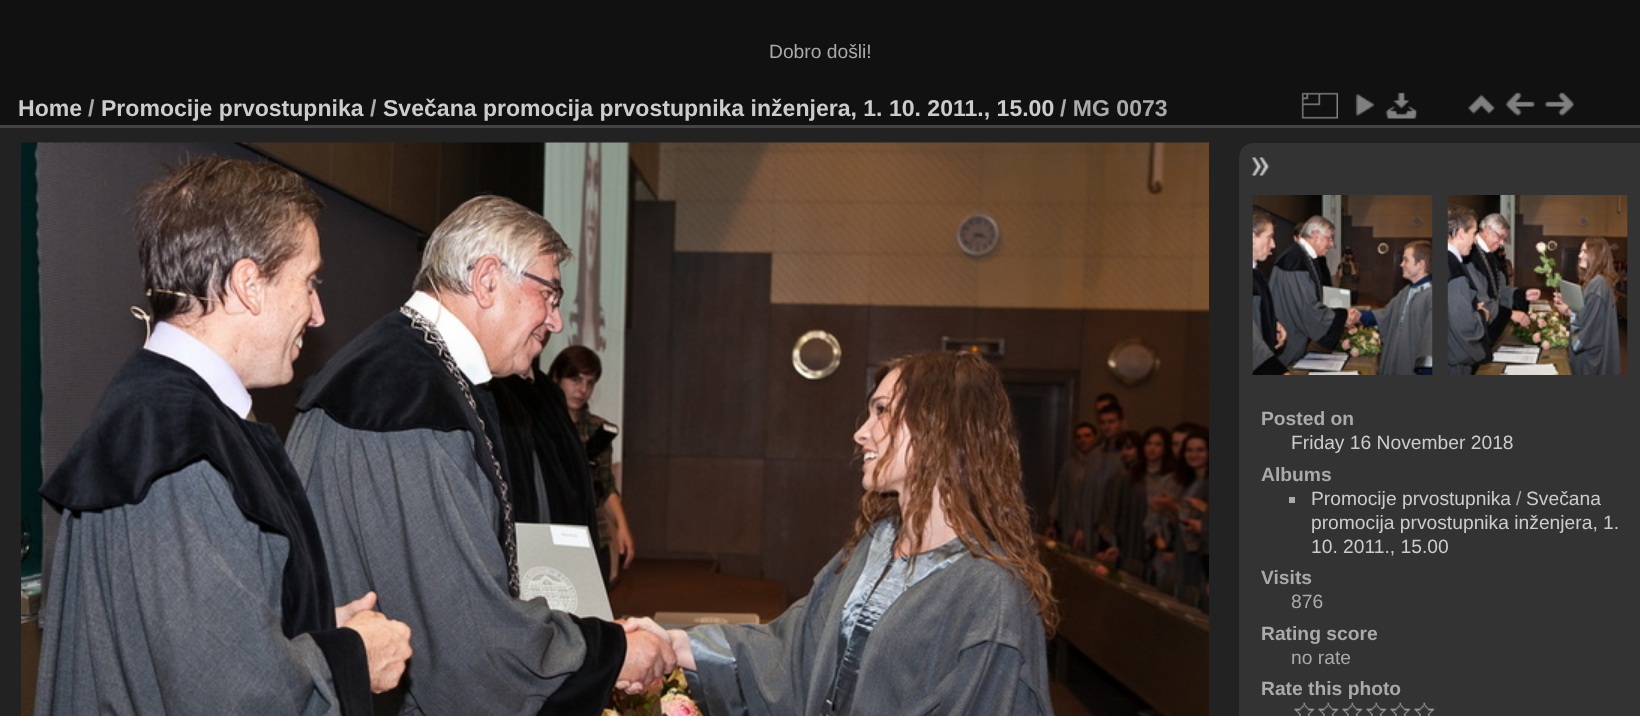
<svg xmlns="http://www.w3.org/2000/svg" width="1640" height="716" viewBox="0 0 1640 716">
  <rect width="100%" height="100%" fill="#111111"/>
  <text x="769" y="58" font-family="Liberation Sans" font-size="19.25" fill="#aaaaaa">Dobro došli!</text>
  <rect x="0" y="128" width="1640" height="588" fill="#222222"/>
  <rect x="0" y="125" width="1640" height="3" fill="#444444"/>
  <text x="18" y="116" font-family="Liberation Sans" font-size="23.05" font-weight="bold" fill="#cccccc">Home</text>
  <text x="88" y="116" font-family="Liberation Sans" font-size="23.05" font-weight="bold" fill="#aaaaaa">/</text>
  <text x="101" y="116" font-family="Liberation Sans" font-size="23.05" font-weight="bold" fill="#cccccc">Promocije prvostupnika</text>
  <text x="370" y="116" font-family="Liberation Sans" font-size="23.05" font-weight="bold" fill="#aaaaaa">/</text>
  <text x="383" y="116" font-family="Liberation Sans" font-size="23.05" font-weight="bold" fill="#cccccc">Svečana promocija prvostupnika inženjera, 1. 10. 2011., 15.00</text>
  <text x="1060" y="116" font-family="Liberation Sans" font-size="23.05" font-weight="bold" fill="#aaaaaa">/ MG 0073</text>
  <image x="1301" y="92" width="37" height="27" href="img1.png"/>
  <image x="1355" y="94" width="20" height="22" href="img2.png"/>
  <image x="1385" y="92" width="33" height="27" href="img3.png"/>
  <image x="1468" y="94" width="27" height="21" href="img4.png"/>
  <image x="1505" y="92" width="30" height="24" href="img5.png"/>
  <image x="1544" y="92" width="30" height="24" href="img6.png"/>
  <image x="21" y="142" width="1188" height="574" href="img7.png"/>
  <path d="M1254 143H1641V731H1254C1245.5 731 1239 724.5 1239 716V158C1239 149.5 1245.5 143 1254 143Z" fill="#333333"/>
  <image x="1251" y="157" width="19" height="19" href="img8.png"/>
  <image x="1252" y="195" width="181" height="180" href="img9.png"/>
  <image x="1447" y="195" width="181" height="180" href="img10.png"/>
  <text x="1261" y="425" font-family="Liberation Sans" font-size="19.25" font-weight="bold" fill="#aaaaaa">Posted on</text>
  <text x="1291" y="449" font-family="Liberation Sans" font-size="19.25" fill="#cccccc">Friday 16 November 2018</text>
  <text x="1261" y="481" font-family="Liberation Sans" font-size="19.25" font-weight="bold" fill="#aaaaaa">Albums</text>
  <rect x="1289" y="497" width="6" height="6" fill="#aaaaaa"/>
  <text x="1311" y="505" font-family="Liberation Sans" font-size="19.25" fill="#cccccc">Promocije prvostupnika</text>
  <text x="1516" y="505" font-family="Liberation Sans" font-size="19.25" fill="#aaaaaa">/</text>
  <text x="1526" y="505" font-family="Liberation Sans" font-size="19.25" fill="#cccccc">Svečana</text>
  <text x="1311" y="529" font-family="Liberation Sans" font-size="19.25" fill="#cccccc">promocija prvostupnika inženjera, 1.</text>
  <text x="1311" y="553" font-family="Liberation Sans" font-size="19.25" fill="#cccccc">10. 2011., 15.00</text>
  <text x="1261" y="584" font-family="Liberation Sans" font-size="19.25" font-weight="bold" fill="#aaaaaa">Visits</text>
  <text x="1291" y="608" font-family="Liberation Sans" font-size="19.25" fill="#aaaaaa">876</text>
  <text x="1261" y="640" font-family="Liberation Sans" font-size="19.25" font-weight="bold" fill="#aaaaaa">Rating score</text>
  <text x="1291" y="664" font-family="Liberation Sans" font-size="19.25" fill="#aaaaaa">no rate</text>
  <text x="1261" y="695" font-family="Liberation Sans" font-size="19.25" font-weight="bold" fill="#aaaaaa">Rate this photo</text>
  <image x="1294" y="702" width="21" height="14" href="img11.png"/>
  <image x="1318" y="702" width="21" height="14" href="img11.png"/>
  <image x="1342" y="702" width="21" height="14" href="img11.png"/>
  <image x="1366" y="702" width="21" height="14" href="img11.png"/>
  <image x="1390" y="702" width="21" height="14" href="img11.png"/>
  <image x="1414" y="702" width="21" height="14" href="img11.png"/>
</svg>
